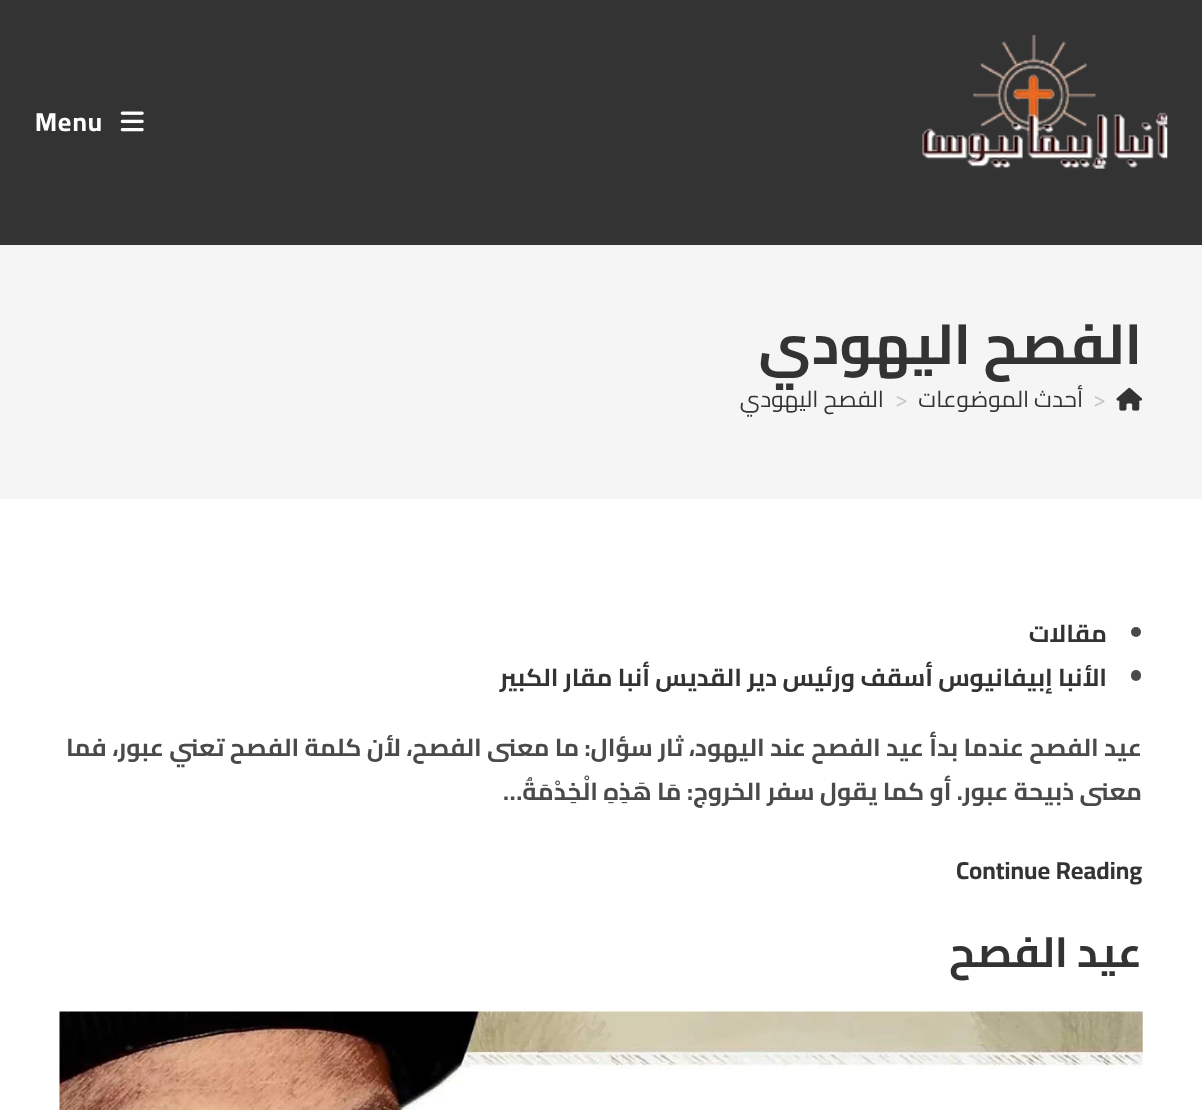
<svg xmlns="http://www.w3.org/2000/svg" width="1202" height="1110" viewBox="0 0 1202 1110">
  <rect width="100%" height="100%" fill="#ffffff"/>
  <rect x="0" y="0" width="1202" height="245" fill="#333333"/>
  <image x="922" y="35" width="246" height="134" href="img1.png"/>
  <image x="120" y="111" width="24" height="21" href="img2.png"/>
  <text x="35" y="131" font-family="Cairo" font-size="26" font-weight="bold" letter-spacing="1" fill="#ffffff">Menu</text>
  <rect x="0" y="245" width="1202" height="254" fill="#f5f5f5"/>
  <text x="1142" y="364" font-family="Cairo" font-size="56" font-weight="bold" direction="rtl" fill="#333333">الفصح اليهودي</text>
  <image x="1116" y="387" width="27" height="24" href="img3.png"/>
  <text x="1093" y="407" font-family="Cairo" font-size="22.75" fill="#c6c6c6">&gt;</text>
  <text x="1083" y="407" font-family="Cairo" font-size="22.75" direction="rtl" fill="#333333">أحدث الموضوعات</text>
  <text x="895" y="407" font-family="Cairo" font-size="22.75" fill="#c6c6c6">&gt;</text>
  <text x="884" y="407" font-family="Cairo" font-size="22.75" direction="rtl" fill="#333333">الفصح اليهودي</text>
  <circle cx="1136" cy="632" r="5" fill="#4a4a4a"/>
  <text x="1107" y="642" font-family="Cairo" font-size="24.5" font-weight="bold" direction="rtl" fill="#333333">مقالات</text>
  <rect x="1131" y="670" width="10" height="11" rx="5" fill="#4a4a4a"/>
  <text x="1107" y="686" font-family="Cairo" font-size="24.5" font-weight="bold" direction="rtl" fill="#333333">الأنبا إبيفانيوس أسقف ورئيس دير القديس أنبا مقار الكبير</text>
  <text x="1142" y="756" font-family="Cairo" font-size="24.5" font-weight="bold" direction="rtl" fill="#4a4a4a">عيد الفصح عندما بدأ عيد الفصح عند اليهود، ثار سؤال: ما معنى الفصح، لأن كلمة الفصح تعني عبور، فما</text>
  <text x="1142" y="800" font-family="Cairo" font-size="24.5" font-weight="bold" direction="rtl" fill="#4a4a4a">معنى ذبيحة عبور. أو كما يقول سفر الخروج: مَا هَذِهِ الْخِدْمَةُ…</text>
  <text x="956" y="879" font-family="Cairo" font-size="24.5" font-weight="bold" fill="#333333">Continue Reading</text>
  <text x="1142" y="967" font-family="Cairo" font-size="42" font-weight="bold" direction="rtl" fill="#333333">عيد الفصح</text>
  <image x="59" y="1011" width="1084" height="99" href="img4.png"/>
</svg>
